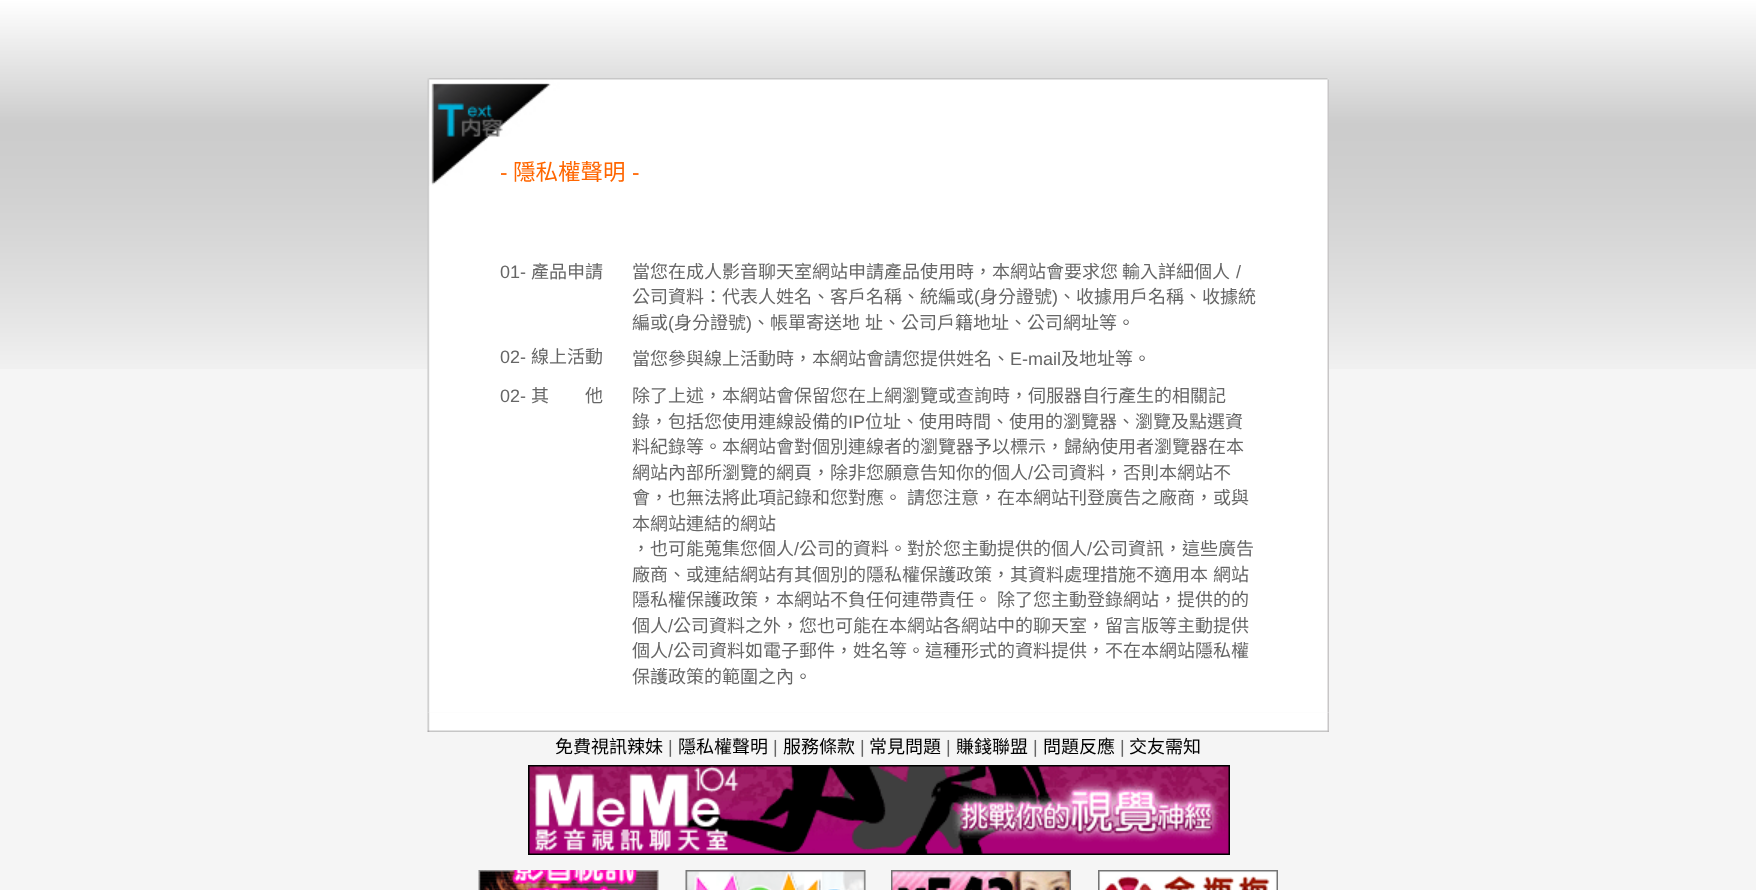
<svg xmlns="http://www.w3.org/2000/svg" width="1756" height="890" viewBox="0 0 1756 890">
  <rect width="100%" height="100%" fill="#f5f5f5"/>
  <image x="0" y="0" width="1756" height="369" href="img1.png"/>
  <image x="427" y="78" width="902" height="108" href="img2.png"/>
  <text x="500" y="180" font-family="Liberation Sans" font-size="22.5" fill="#ff6600">-</text>
  <text x="513" y="180" font-family="Noto Sans CJK TC" font-size="22.5" fill="#ff6600">隱私權聲明</text>
  <text x="632" y="180" font-family="Liberation Sans" font-size="22.5" fill="#ff6600">-</text>
  <image x="427" y="186" width="902" height="527" href="img3.png"/>
  <text x="500" y="278" font-family="Liberation Sans" font-size="18" fill="#666666">01-</text>
  <text x="531" y="278" font-family="Noto Sans CJK TC" font-size="18" fill="#666666">產品申請</text>
  <text x="632" y="278" font-family="Noto Sans CJK TC" font-size="18" fill="#666666">當您在成人影音聊天室網站申請產品使用時，本網站會要求您 輸入詳細個人</text>
  <text x="1236" y="278" font-family="Liberation Sans" font-size="18" fill="#666666">/</text>
  <text x="632" y="303" font-family="Noto Sans CJK TC" font-size="18" fill="#666666">公司資料：代表人姓名、客戶名稱、統編或</text>
  <text x="974" y="303" font-family="Liberation Sans" font-size="18" fill="#666666">(</text>
  <text x="980" y="303" font-family="Noto Sans CJK TC" font-size="18" fill="#666666">身分證號</text>
  <text x="1052" y="303" font-family="Liberation Sans" font-size="18" fill="#666666">)</text>
  <text x="1058" y="303" font-family="Noto Sans CJK TC" font-size="18" fill="#666666">、收據用戶名稱、收據統</text>
  <text x="632" y="329" font-family="Noto Sans CJK TC" font-size="18" fill="#666666">編或</text>
  <text x="668" y="329" font-family="Liberation Sans" font-size="18" fill="#666666">(</text>
  <text x="674" y="329" font-family="Noto Sans CJK TC" font-size="18" fill="#666666">身分證號</text>
  <text x="746" y="329" font-family="Liberation Sans" font-size="18" fill="#666666">)</text>
  <text x="752" y="329" word-spacing="1" font-family="Noto Sans CJK TC" font-size="18" fill="#666666">、帳單寄送地 址、公司戶籍地址、公司網址等。</text>
  <text x="500" y="363" font-family="Liberation Sans" font-size="18" fill="#666666">02-</text>
  <text x="531" y="363" font-family="Noto Sans CJK TC" font-size="18" fill="#666666">線上活動</text>
  <text x="632" y="365" font-family="Noto Sans CJK TC" font-size="18" fill="#666666">當您參與線上活動時，本網站會請您提供姓名、</text>
  <text x="1010" y="365" font-family="Liberation Sans" font-size="18" fill="#666666">E-mail</text>
  <text x="1061" y="365" font-family="Noto Sans CJK TC" font-size="18" fill="#666666">及地址等。</text>
  <text x="500" y="402" font-family="Liberation Sans" font-size="18" fill="#666666">02-</text>
  <text x="531" y="402" font-family="Noto Sans CJK TC" font-size="18" fill="#666666">其　　他</text>
  <text x="632" y="402" font-family="Noto Sans CJK TC" font-size="18" fill="#666666">除了上述，本網站會保留您在上網瀏覽或查詢時，伺服器自行產生的相關記</text>
  <text x="632" y="428" font-family="Noto Sans CJK TC" font-size="18" fill="#666666">錄，包括您使用連線設備的</text>
  <text x="848" y="428" font-family="Liberation Sans" font-size="18" fill="#666666">IP</text>
  <text x="865" y="428" font-family="Noto Sans CJK TC" font-size="18" fill="#666666">位址、使用時間、使用的瀏覽器、瀏覽及點選資</text>
  <text x="632" y="453" font-family="Noto Sans CJK TC" font-size="18" fill="#666666">料紀錄等。本網站會對個別連線者的瀏覽器予以標示，歸納使用者瀏覽器在本</text>
  <text x="632" y="479" font-family="Noto Sans CJK TC" font-size="18" fill="#666666">網站內部所瀏覽的網頁，除非您願意告知你的個人</text>
  <text x="1028" y="479" font-family="Liberation Sans" font-size="18" fill="#666666">/</text>
  <text x="1033" y="479" font-family="Noto Sans CJK TC" font-size="18" fill="#666666">公司資料，否則本網站不</text>
  <text x="632" y="504" word-spacing="1" font-family="Noto Sans CJK TC" font-size="18" fill="#666666">會，也無法將此項記錄和您對應。 請您注意，在本網站刊登廣告之廠商，或與</text>
  <text x="632" y="530" font-family="Noto Sans CJK TC" font-size="18" fill="#666666">本網站連結的網站</text>
  <text x="632" y="555" font-family="Noto Sans CJK TC" font-size="18" fill="#666666">，也可能蒐集您個人</text>
  <text x="794" y="555" font-family="Liberation Sans" font-size="18" fill="#666666">/</text>
  <text x="799" y="555" font-family="Noto Sans CJK TC" font-size="18" fill="#666666">公司的資料。對於您主動提供的個人</text>
  <text x="1087" y="555" font-family="Liberation Sans" font-size="18" fill="#666666">/</text>
  <text x="1092" y="555" font-family="Noto Sans CJK TC" font-size="18" fill="#666666">公司資訊，這些廣告</text>
  <text x="632" y="581" word-spacing="1" font-family="Noto Sans CJK TC" font-size="18" fill="#666666">廠商、或連結網站有其個別的隱私權保護政策，其資料處理措施不適用本 網站</text>
  <text x="632" y="606" word-spacing="1" font-family="Noto Sans CJK TC" font-size="18" fill="#666666">隱私權保護政策，本網站不負任何連帶責任。 除了您主動登錄網站，提供的的</text>
  <text x="632" y="632" font-family="Noto Sans CJK TC" font-size="18" fill="#666666">個人</text>
  <text x="668" y="632" font-family="Liberation Sans" font-size="18" fill="#666666">/</text>
  <text x="673" y="632" font-family="Noto Sans CJK TC" font-size="18" fill="#666666">公司資料之外，您也可能在本網站各網站中的聊天室，留言版等主動提供</text>
  <text x="632" y="657" font-family="Noto Sans CJK TC" font-size="18" fill="#666666">個人</text>
  <text x="668" y="657" font-family="Liberation Sans" font-size="18" fill="#666666">/</text>
  <text x="673" y="657" font-family="Noto Sans CJK TC" font-size="18" fill="#666666">公司資料如電子郵件，姓名等。這種形式的資料提供，不在本網站隱私權</text>
  <text x="632" y="683" font-family="Noto Sans CJK TC" font-size="18" fill="#666666">保護政策的範圍之內。</text>
  <image x="427" y="712" width="902" height="20" href="img4.png"/>
  <text x="555" y="753" font-family="Noto Sans CJK TC" font-size="18" fill="#000000">免費視訊辣妹</text>
  <text x="668" y="753" font-family="Liberation Sans" font-size="18" fill="#666666">|</text>
  <text x="678" y="753" font-family="Noto Sans CJK TC" font-size="18" fill="#000000">隱私權聲明</text>
  <text x="773" y="753" font-family="Liberation Sans" font-size="18" fill="#666666">|</text>
  <text x="783" y="753" font-family="Noto Sans CJK TC" font-size="18" fill="#000000">服務條款</text>
  <text x="860" y="753" font-family="Liberation Sans" font-size="18" fill="#666666">|</text>
  <text x="869" y="753" font-family="Noto Sans CJK TC" font-size="18" fill="#000000">常見問題</text>
  <text x="946" y="753" font-family="Liberation Sans" font-size="18" fill="#666666">|</text>
  <text x="956" y="753" font-family="Noto Sans CJK TC" font-size="18" fill="#000000">賺錢聯盟</text>
  <text x="1033" y="753" font-family="Liberation Sans" font-size="18" fill="#666666">|</text>
  <text x="1043" y="753" font-family="Noto Sans CJK TC" font-size="18" fill="#000000">問題反應</text>
  <text x="1120" y="753" font-family="Liberation Sans" font-size="18" fill="#666666">|</text>
  <text x="1129" y="753" font-family="Noto Sans CJK TC" font-size="18" fill="#000000">交友需知</text>
  <image x="528" y="765" width="702" height="90" href="img5.png"/>
  <image x="478" y="870" width="181" height="20" href="img6.png"/>
  <image x="685" y="870" width="181" height="20" href="img7.png"/>
  <image x="891" y="870" width="180" height="20" href="img8.png"/>
  <image x="1098" y="870" width="180" height="20" href="img9.png"/>
</svg>
